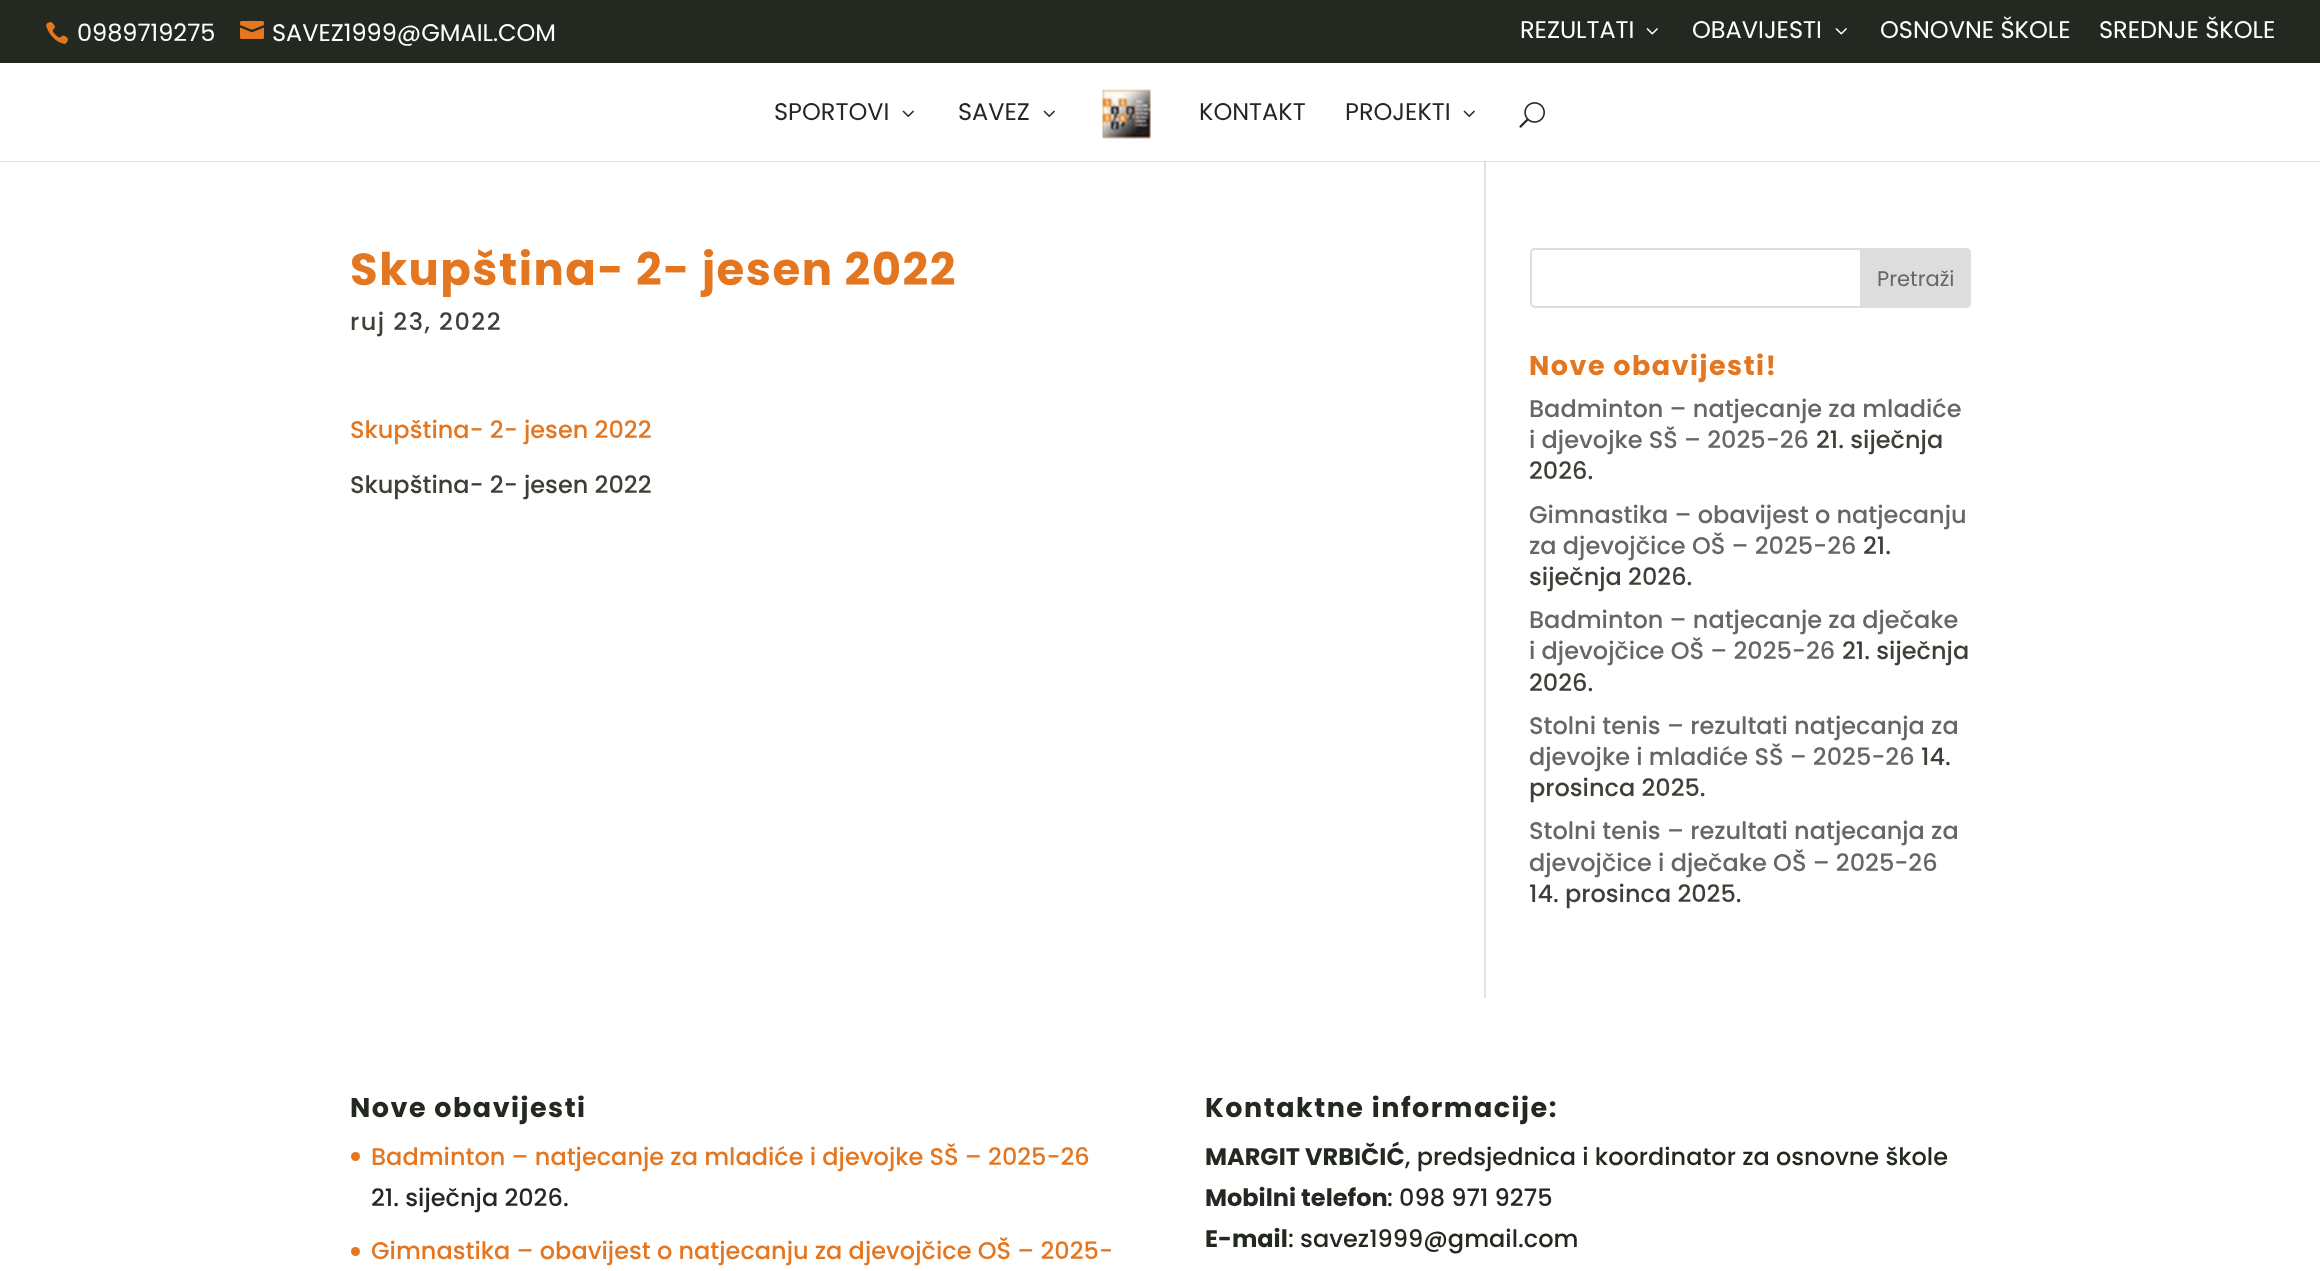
<svg xmlns="http://www.w3.org/2000/svg" width="2320" height="1271" viewBox="0 0 2320 1271">
  <rect width="100%" height="100%" fill="#ffffff"/>
  <rect x="0" y="0" width="2320" height="63" fill="#232820"/>
  <image x="46" y="22" width="22" height="22" href="img1.png"/>
  <text x="77" y="41" font-family="Poppins" font-size="24" fill="#ffffff">0989719275</text>
  <image x="240" y="21" width="24" height="18" href="img2.png"/>
  <text x="272" y="41" font-family="Poppins" font-size="24" fill="#ffffff">SAVEZ1999@GMAIL.COM</text>
  <text x="1520" y="38" font-family="Poppins" font-size="24" fill="#ffffff">REZULTATI</text>
  <image x="1646" y="28" width="12" height="7" href="img3.png"/>
  <text x="1692" y="38" font-family="Poppins" font-size="24" fill="#ffffff">OBAVIJESTI</text>
  <image x="1835" y="28" width="12" height="7" href="img3.png"/>
  <text x="1880" y="38" font-family="Poppins" font-size="24" fill="#ffffff">OSNOVNE ŠKOLE</text>
  <text x="2099" y="38" font-family="Poppins" font-size="24" fill="#ffffff">SREDNJE ŠKOLE</text>
  <rect x="1484" y="161" width="2" height="837" fill="#e2e2e2"/>
  <path d="M0 160V162H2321V65H2320V160Z" fill="#000000" fill-opacity="0.1"/>
  <rect x="0" y="160" width="2320" height="1" fill="#ffffff"/>
  <text x="774" y="120" font-family="Poppins" font-size="24" fill="#232820">SPORTOVI</text>
  <image x="902" y="110" width="12" height="7" href="img4.png"/>
  <text x="958" y="120" font-family="Poppins" font-size="24" fill="#232820">SAVEZ</text>
  <image x="1043" y="110" width="12" height="7" href="img4.png"/>
  <image x="1102" y="89" width="49" height="50" href="img5.png"/>
  <text x="1199" y="120" font-family="Poppins" font-size="24" fill="#232820">KONTAKT</text>
  <text x="1345" y="120" font-family="Poppins" font-size="24" fill="#232820">PROJEKTI</text>
  <image x="1463" y="110" width="12" height="7" href="img4.png"/>
  <image x="1519" y="102" width="26" height="26" href="img6.png"/>
  <text x="350" y="285" font-family="Poppins" font-size="45" font-weight="bold" letter-spacing="1.5" fill="#e57620">Skupština- 2- jesen 2022</text>
  <text x="350" y="330" font-family="Poppins" font-size="24" font-weight="500" letter-spacing="1.5" fill="#3f3f37">ruj 23, 2022</text>
  <text x="350" y="438" font-family="Poppins" font-size="24" font-weight="500" fill="#e57620">Skupština- 2- jesen 2022</text>
  <text x="350" y="493" font-family="Poppins" font-size="24" font-weight="500" fill="#3f3f37">Skupština- 2- jesen 2022</text>
  <rect x="1531" y="249" width="439" height="58" rx="4" fill="none" stroke="#dddddd" stroke-width="2"/>
  <path d="M1861 249H1966C1968 249 1970 251 1970 253V303C1970 305 1968 307 1966 307H1861Z" fill="#dddddd" stroke="#dddddd" stroke-width="2"/>
  <text x="1877" y="286" font-family="Poppins" font-size="21" fill="#666666">Pretraži</text>
  <text x="1529" y="375" font-family="Poppins" font-size="27" font-weight="bold" letter-spacing="1.5" fill="#e57620">Nove obavijesti!</text>
  <text x="1529" y="417" font-family="Poppins" font-size="24" font-weight="500" fill="#666666">Badminton – natjecanje za mladiće</text>
  <text x="1529" y="448" font-family="Poppins" font-size="24" font-weight="500" fill="#666666">i djevojke SŠ – 2025-26</text>
  <text x="1816" y="448" font-family="Poppins" font-size="24" font-weight="500" fill="#3f3f37">21. siječnja</text>
  <text x="1529" y="479" font-family="Poppins" font-size="24" font-weight="500" fill="#3f3f37">2026.</text>
  <text x="1529" y="523" font-family="Poppins" font-size="24" font-weight="500" fill="#666666">Gimnastika – obavijest o natjecanju</text>
  <text x="1529" y="554" font-family="Poppins" font-size="24" font-weight="500" fill="#666666">za djevojčice OŠ – 2025-26</text>
  <text x="1863" y="554" font-family="Poppins" font-size="24" font-weight="500" fill="#3f3f37">21.</text>
  <text x="1529" y="585" font-family="Poppins" font-size="24" font-weight="500" fill="#3f3f37">siječnja 2026.</text>
  <text x="1529" y="628" font-family="Poppins" font-size="24" font-weight="500" fill="#666666">Badminton – natjecanje za dječake</text>
  <text x="1529" y="659" font-family="Poppins" font-size="24" font-weight="500" fill="#666666">i djevojčice OŠ – 2025-26</text>
  <text x="1842" y="659" font-family="Poppins" font-size="24" font-weight="500" fill="#3f3f37">21. siječnja</text>
  <text x="1529" y="691" font-family="Poppins" font-size="24" font-weight="500" fill="#3f3f37">2026.</text>
  <text x="1529" y="734" font-family="Poppins" font-size="24" font-weight="500" fill="#666666">Stolni tenis – rezultati natjecanja za</text>
  <text x="1529" y="765" font-family="Poppins" font-size="24" font-weight="500" fill="#666666">djevojke i mladiće SŠ – 2025-26</text>
  <text x="1921" y="765" font-family="Poppins" font-size="24" font-weight="500" fill="#3f3f37">14.</text>
  <text x="1529" y="796" font-family="Poppins" font-size="24" font-weight="500" fill="#3f3f37">prosinca 2025.</text>
  <text x="1529" y="839" font-family="Poppins" font-size="24" font-weight="500" fill="#666666">Stolni tenis – rezultati natjecanja za</text>
  <text x="1529" y="871" font-family="Poppins" font-size="24" font-weight="500" fill="#666666">djevojčice i dječake OŠ – 2025-26</text>
  <text x="1529" y="902" font-family="Poppins" font-size="24" font-weight="500" fill="#3f3f37">14. prosinca 2025.</text>
  <text x="350" y="1117" font-family="Poppins" font-size="27" font-weight="bold" letter-spacing="1.5" fill="#232820">Nove obavijesti</text>
  <circle cx="355.5" cy="1156.5" r="4.5" fill="#e57620"/>
  <text x="371" y="1165" font-family="Poppins" font-size="24" font-weight="500" fill="#e57620">Badminton – natjecanje za mladiće i djevojke SŠ – 2025-26</text>
  <text x="371" y="1206" font-family="Poppins" font-size="24" font-weight="500" fill="#232820">21. siječnja 2026.</text>
  <circle cx="355.5" cy="1251.5" r="4.5" fill="#e57620"/>
  <text x="371" y="1259" font-family="Poppins" font-size="24" font-weight="500" fill="#e57620">Gimnastika – obavijest o natjecanju za djevojčice OŠ – 2025-</text>
  <text x="1205" y="1117" font-family="Poppins" font-size="27" font-weight="bold" letter-spacing="1.5" fill="#232820">Kontaktne informacije:</text>
  <text x="1205" y="1165" font-family="Poppins" font-size="24" font-weight="bold" fill="#232820">MARGIT VRBIČIĆ</text>
  <text x="1405" y="1165" font-family="Poppins" font-size="24" font-weight="500" fill="#232820">, predsjednica i koordinator za osnovne škole</text>
  <text x="1205" y="1206" font-family="Poppins" font-size="24" font-weight="bold" fill="#232820">Mobilni telefon</text>
  <text x="1387" y="1206" font-family="Poppins" font-size="24" font-weight="500" fill="#232820">: 098 971 9275</text>
  <text x="1205" y="1247" font-family="Poppins" font-size="24" font-weight="bold" fill="#232820">E-mail</text>
  <text x="1288" y="1247" font-family="Poppins" font-size="24" font-weight="500" fill="#232820">: savez1999@gmail.com</text>
</svg>
